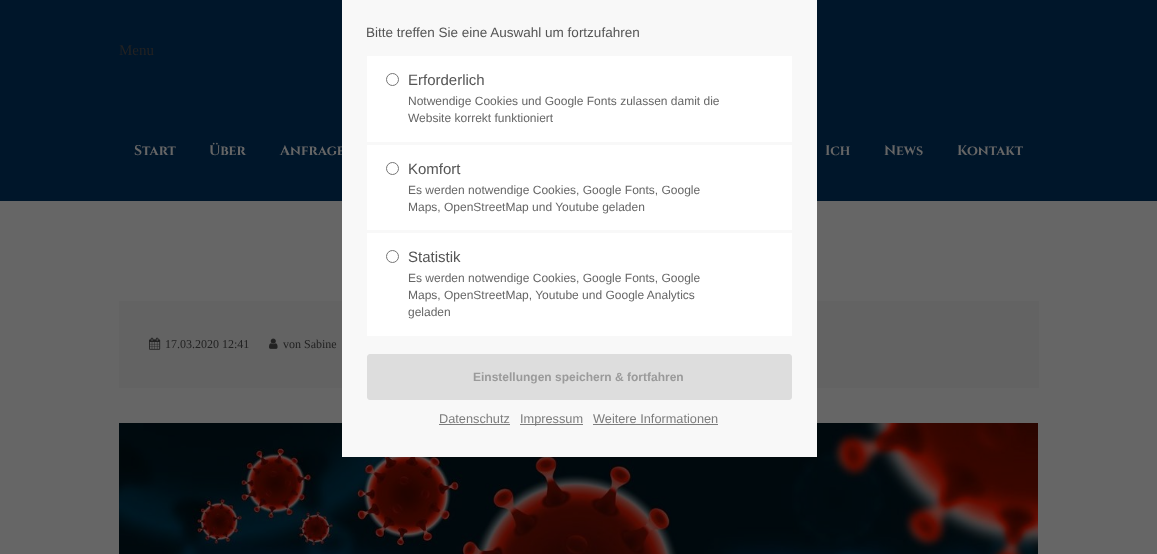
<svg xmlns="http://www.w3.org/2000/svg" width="1157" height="554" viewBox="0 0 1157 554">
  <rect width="100%" height="100%" fill="#666666"/>
  <rect x="0" y="0" width="1157" height="201" fill="#00162a"/>
  <text x="280" y="155" font-family="Cinzel" font-size="14" font-weight="bold" fill="#666666">Anfrage</text>
  <rect x="119" y="301" width="920" height="87" fill="#636363"/>
  <image x="119" y="423" width="919" height="131" href="img3.png"/>
  <rect x="342" y="0" width="475" height="457" fill="#f8f8f8"/>
  <text x="366" y="37" font-family="Liberation Sans" font-size="13.5" fill="#555555">Bitte treffen Sie eine Auswahl um fortzufahren</text>
  <rect x="367" y="56" width="425" height="86" fill="#ffffff"/>
  <circle cx="392.5" cy="79.5" r="6" fill="none" stroke="#767676"/>
  <text x="408" y="85" font-family="Liberation Sans" font-size="15" fill="#555555">Erforderlich</text>
  <text x="408" y="105" font-family="Liberation Sans" font-size="12" fill="#666666">Notwendige Cookies und Google Fonts zulassen damit die</text>
  <text x="408" y="122" font-family="Liberation Sans" font-size="12" fill="#666666">Website korrekt funktioniert</text>
  <rect x="367" y="145" width="425" height="85" fill="#ffffff"/>
  <circle cx="392.5" cy="168.5" r="6" fill="none" stroke="#767676"/>
  <text x="408" y="174" font-family="Liberation Sans" font-size="15" fill="#555555">Komfort</text>
  <text x="408" y="194" font-family="Liberation Sans" font-size="12" fill="#666666">Es werden notwendige Cookies, Google Fonts, Google</text>
  <text x="408" y="211" font-family="Liberation Sans" font-size="12" fill="#666666">Maps, OpenStreetMap und Youtube geladen</text>
  <rect x="367" y="233" width="425" height="103" fill="#ffffff"/>
  <circle cx="392.5" cy="256.5" r="6" fill="none" stroke="#767676"/>
  <text x="408" y="262" font-family="Liberation Sans" font-size="15" fill="#555555">Statistik</text>
  <text x="408" y="282" font-family="Liberation Sans" font-size="12" fill="#666666">Es werden notwendige Cookies, Google Fonts, Google</text>
  <text x="408" y="299" font-family="Liberation Sans" font-size="12" fill="#666666">Maps, OpenStreetMap, Youtube und Google Analytics</text>
  <text x="408" y="316" font-family="Liberation Sans" font-size="12" fill="#666666">geladen</text>
  <rect x="367.5" y="354.5" width="424" height="45" rx="2.5" fill="#dddddd" stroke="#dddddd"/>
  <text x="473" y="381" font-family="Liberation Sans" font-size="12" font-weight="bold" fill="#9a9a9a">Einstellungen speichern &amp; fortfahren</text>
  <text x="439" y="423" font-family="Liberation Sans" font-size="12.75" fill="#7c7c7c">Datenschutz</text>
  <rect x="439" y="424" width="71" height="1" fill="#7c7c7c"/>
  <rect x="520" y="424" width="63" height="1" fill="#7c7c7c"/>
  <text x="520" y="423" font-family="Liberation Sans" font-size="12.75" fill="#7c7c7c">Impressum</text>
  <text x="593" y="423" font-family="Liberation Sans" font-size="12.75" fill="#7c7c7c">Weitere Informationen</text>
  <rect x="593" y="424" width="125" height="1" fill="#7c7c7c"/>
  <text x="119" y="55" font-family="Liberation Serif" font-size="15" fill="#222222">Menu</text>
  <text x="134" y="155" font-family="Cinzel" font-size="14" font-weight="bold" fill="#666666">Start</text>
  <text x="209" y="155" font-family="Cinzel" font-size="14" font-weight="bold" fill="#666666">Über</text>
  <text x="825" y="155" font-family="Cinzel" font-size="14" font-weight="bold" fill="#666666">Ich</text>
  <text x="884" y="155" font-family="Cinzel" font-size="14" font-weight="bold" fill="#666666">News</text>
  <text x="957" y="155" font-family="Cinzel" font-size="14" font-weight="bold" fill="#666666">Kontakt</text>
  <image x="149" y="337" width="12" height="13" href="img1.png"/>
  <text x="165" y="348" font-family="Liberation Serif" font-size="12" fill="#222222">17.03.2020 12:41</text>
  <image x="269" y="338" width="9" height="11" href="img2.png"/>
  <text x="283" y="348" font-family="Liberation Serif" font-size="12" fill="#222222">von Sabine</text>
</svg>
